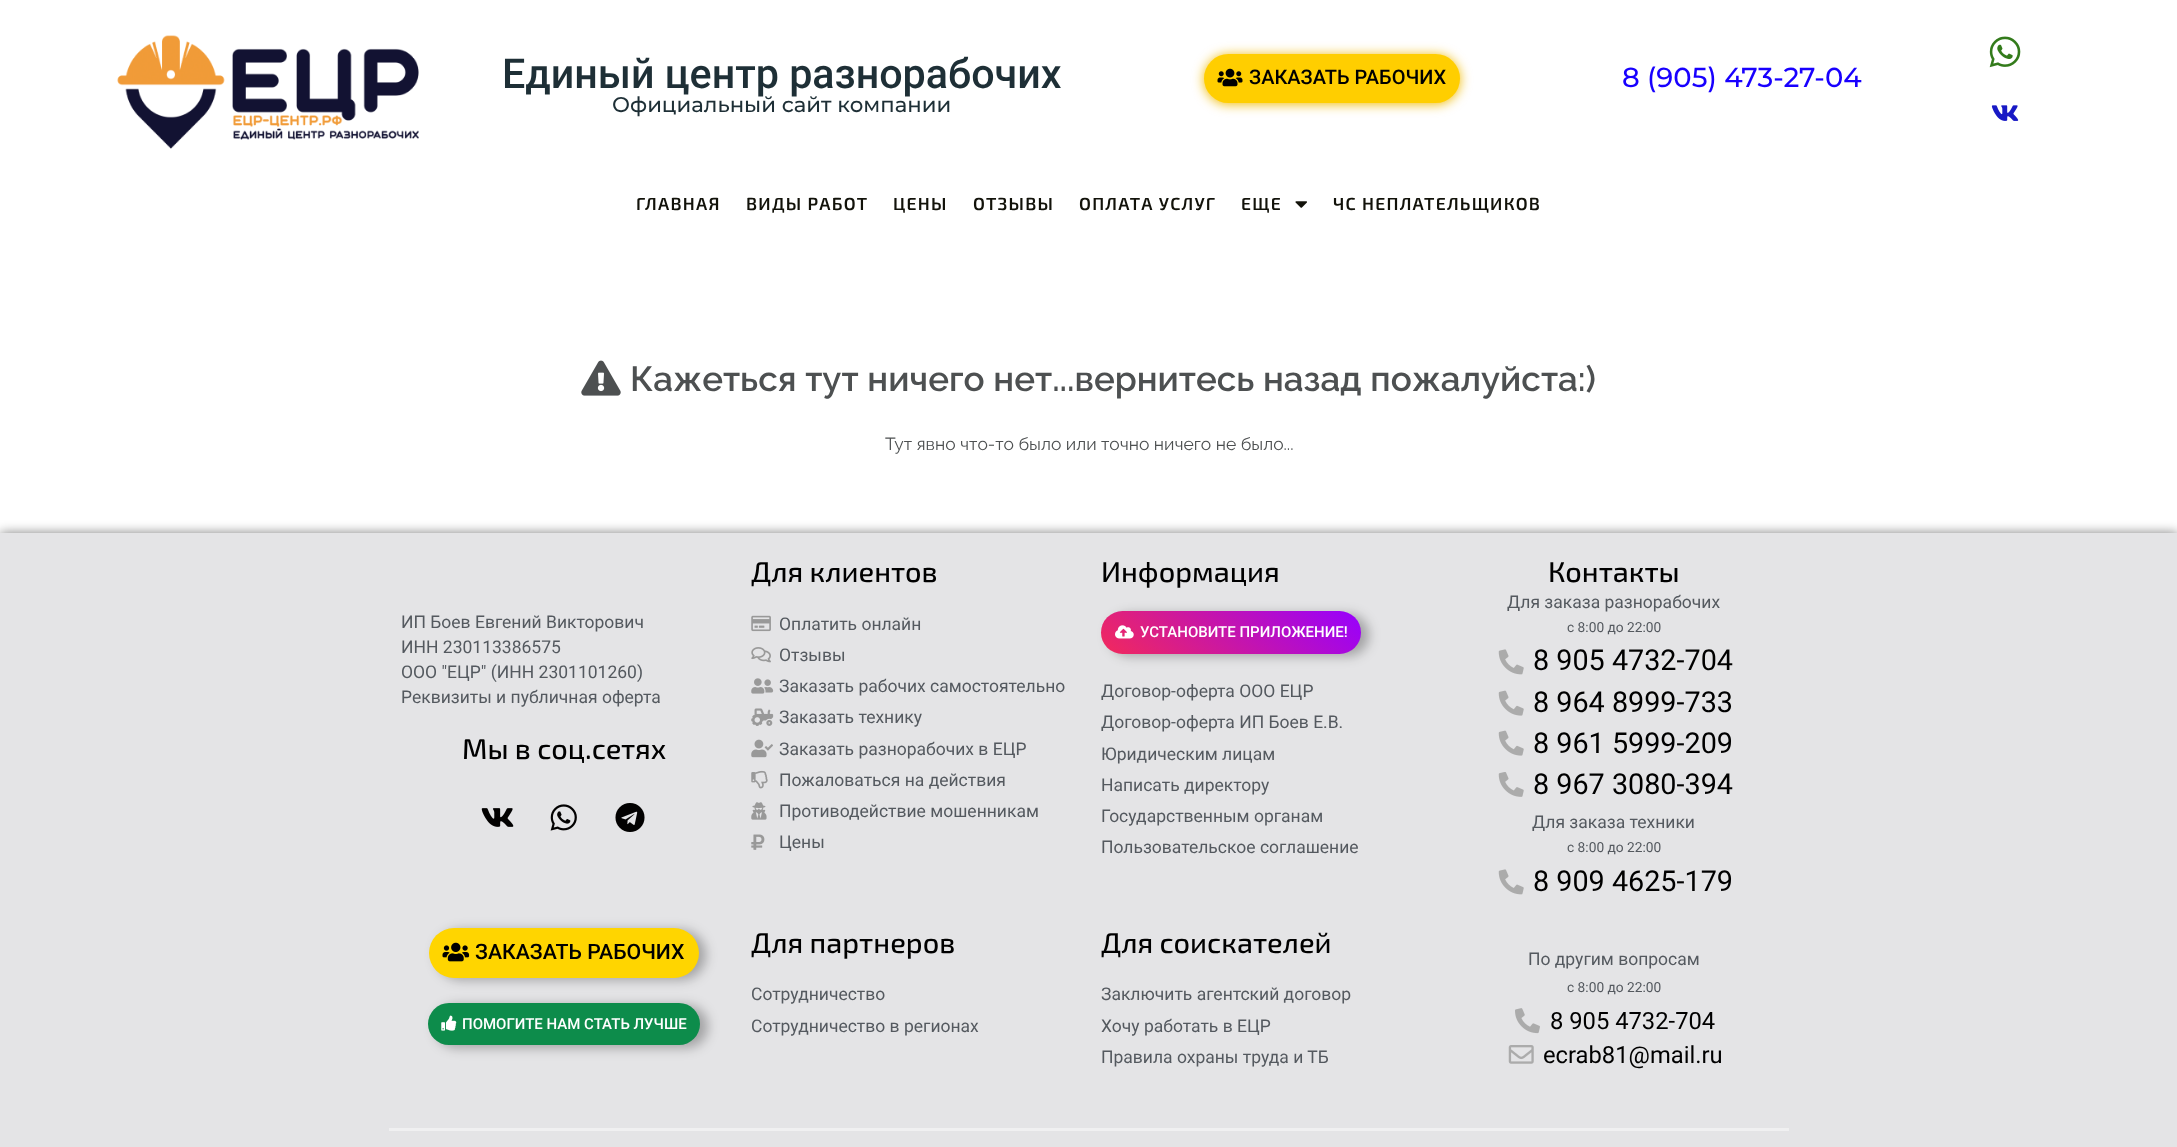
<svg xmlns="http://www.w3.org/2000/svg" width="2177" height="1147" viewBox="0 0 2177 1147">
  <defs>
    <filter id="blur1" x="-50%" y="-200%" width="200%" height="500%"><feGaussianBlur stdDeviation="6"/></filter>
    <linearGradient id="g1" gradientUnits="userSpaceOnUse" x1="1295" y1="556" x2="1167" y2="709"><stop offset="0" stop-color="#9700ff"/><stop offset="1" stop-color="#f2295b"/></linearGradient>
  </defs>
  <rect width="100%" height="100%" fill="#ffffff"/>
  <image x="117" y="35" width="302" height="114" href="img1.png"/>
  <text x="502" y="88" font-family="Roboto" font-size="41.25" font-weight="500" fill="#1e2f36">Единый центр разнорабочих</text>
  <text x="612" y="112" font-family="Montserrat" font-size="21.25" font-weight="500" fill="#1e2f36">Официальный сайт компании</text>
  <rect x="1204" y="55" width="256" height="49" rx="24.5" fill="#f0b900" filter="url(#blur1)"/>
  <rect x="1204" y="54" width="256" height="49" rx="24.5" fill="#ffce00"/>
  <image x="1217" y="68" width="26" height="19" href="img2.png"/>
  <text x="1249" y="84" font-family="Roboto" font-size="20" font-weight="500" fill="#000000">ЗАКАЗАТЬ РАБОЧИХ</text>
  <text x="1622" y="87" font-family="Montserrat Alternates" font-size="27.5" font-weight="500" fill="#1800ff">8 (905) 473-27-04</text>
  <image x="1989" y="36" width="32" height="32" href="img3.png"/>
  <image x="1991" y="105" width="28" height="16" href="img4.png"/>
  <text x="636" y="210" font-family="'Exo 2'" font-size="17.5" font-weight="600" letter-spacing="1.25" fill="#12120a">ГЛАВНАЯ</text>
  <text x="746" y="210" font-family="'Exo 2'" font-size="17.5" font-weight="600" letter-spacing="1.25" fill="#12120a">ВИДЫ РАБОТ</text>
  <text x="893" y="210" font-family="'Exo 2'" font-size="17.5" font-weight="600" letter-spacing="1.25" fill="#12120a">ЦЕНЫ</text>
  <text x="973" y="210" font-family="'Exo 2'" font-size="17.5" font-weight="600" letter-spacing="1.25" fill="#12120a">ОТЗЫВЫ</text>
  <text x="1079" y="210" font-family="'Exo 2'" font-size="17.5" font-weight="600" letter-spacing="1.25" fill="#12120a">ОПЛАТА УСЛУГ</text>
  <text x="1241" y="210" font-family="'Exo 2'" font-size="17.5" font-weight="600" letter-spacing="1.25" fill="#12120a">ЕЩЕ</text>
  <image x="1295" y="201" width="12" height="7" href="img5.png"/>
  <text x="1333" y="210" font-family="'Exo 2'" font-size="17.5" font-weight="600" letter-spacing="1.25" fill="#12120a">ЧС НЕПЛАТЕЛЬЩИКОВ</text>
  <image x="581" y="360" width="40" height="36" href="img6.png"/>
  <text x="630" y="391" font-family="Raleway" font-size="35" font-weight="600" fill="#4d5051">Кажеться тут ничего нет...вернитесь назад пожалуйста:)</text>
  <text x="885" y="450" font-family="Raleway" font-size="17.5" fill="#4d5051">Тут явно что-то было или точно ничего не было...</text>
  <rect x="0" y="533" width="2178" height="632" fill="#000000" fill-opacity="0.5" filter="url(#blur1)"/>
  <rect x="0" y="533" width="2177" height="614" fill="#e4e4e6"/>
  <text x="401" y="628" font-family="Roboto" font-size="17.5" fill="#54595f">ИП Боев Евгений Викторович</text>
  <text x="401" y="653" font-family="Roboto" font-size="17.5" fill="#54595f">ИНН 230113386575</text>
  <text x="401" y="678" font-family="Roboto" font-size="17.5" fill="#54595f">ООО "ЕЦР" (ИНН 2301101260)</text>
  <text x="401" y="703" font-family="Roboto" font-size="17.5" fill="#54595f">Реквизиты и публичная оферта</text>
  <text x="462" y="759" font-family="'Exo 2'" font-size="28.75" font-weight="500" fill="#000000">Мы в соц.сетях</text>
  <image x="481" y="808" width="33" height="19" href="img7.png"/>
  <image x="550" y="804" width="27" height="27" href="img8.png"/>
  <image x="615" y="803" width="30" height="29" href="img9.png"/>
  <text x="751" y="582" font-family="'Exo 2'" font-size="28.75" font-weight="500" fill="#000000">Для клиентов</text>
  <image x="751" y="615" width="20" height="17" href="img10.png"/>
  <text x="779" y="630" font-family="Roboto" font-size="17.5" fill="#54595f">Оплатить онлайн</text>
  <image x="751" y="647" width="20" height="16" href="img11.png"/>
  <text x="779" y="661" font-family="Roboto" font-size="17.5" fill="#54595f">Отзывы</text>
  <image x="751" y="678" width="23" height="16" href="img12.png"/>
  <text x="779" y="692" font-family="Roboto" font-size="17.5" fill="#54595f">Заказать рабочих самостоятельно</text>
  <image x="751" y="708" width="23" height="18" href="img13.png"/>
  <text x="779" y="723" font-family="Roboto" font-size="17.5" fill="#54595f">Заказать технику</text>
  <image x="751" y="739" width="22" height="19" href="img14.png"/>
  <text x="779" y="755" font-family="Roboto" font-size="17.5" fill="#54595f">Заказать разнорабочих в ЕЦР</text>
  <image x="751" y="770" width="17" height="19" href="img15.png"/>
  <text x="779" y="786" font-family="Roboto" font-size="17.5" fill="#54595f">Пожаловаться на действия</text>
  <image x="751" y="802" width="16" height="18" href="img16.png"/>
  <text x="779" y="817" font-family="Roboto" font-size="17.5" fill="#54595f">Противодействие мошенникам</text>
  <image x="751" y="834" width="14" height="16" href="img17.png"/>
  <text x="779" y="848" font-family="Roboto" font-size="17.5" fill="#54595f">Цены</text>
  <text x="1101" y="582" font-family="'Exo 2'" font-size="28.75" font-weight="500" fill="#000000">Информация</text>
  <rect x="1109" y="614" width="260" height="42" rx="21" fill="#000000" fill-opacity="0.29" filter="url(#blur1)"/>
  <rect x="1101" y="611" width="260" height="43" rx="21.5" fill="url(#g1)"/>
  <image x="1115" y="625" width="19" height="14" href="img18.png"/>
  <text x="1140" y="637" font-family="Roboto" font-size="15" font-weight="500" fill="#ffffff">УСТАНОВИТЕ ПРИЛОЖЕНИЕ!</text>
  <text x="1101" y="697" font-family="Roboto" font-size="17.5" fill="#54595f">Договор-оферта ООО ЕЦР</text>
  <text x="1101" y="728" font-family="Roboto" font-size="17.5" fill="#54595f">Договор-оферта ИП Боев Е.В.</text>
  <text x="1101" y="760" font-family="Roboto" font-size="17.5" fill="#54595f">Юридическим лицам</text>
  <text x="1101" y="791" font-family="Roboto" font-size="17.5" fill="#54595f">Написать директору</text>
  <text x="1101" y="822" font-family="Roboto" font-size="17.5" fill="#54595f">Государственным органам</text>
  <text x="1101" y="853" font-family="Roboto" font-size="17.5" fill="#54595f">Пользовательское соглашение</text>
  <text x="1548" y="582" font-family="'Exo 2'" font-size="28.75" font-weight="500" fill="#000000">Контакты</text>
  <text x="1507" y="608" font-family="Roboto" font-size="17.5" fill="#54595f">Для заказа разнорабочих</text>
  <text x="1567" y="632" font-family="Roboto" font-size="13.75" fill="#54595f">с 8:00 до 22:00</text>
  <image x="1498" y="649" width="26" height="26" href="img19.png"/>
  <text x="1533" y="670" font-family="Roboto" font-size="28.75" fill="#000000">8 905 4732-704</text>
  <image x="1498" y="690" width="26" height="26" href="img20.png"/>
  <text x="1533" y="712" font-family="Roboto" font-size="28.75" fill="#000000">8 964 8999-733</text>
  <image x="1498" y="730" width="26" height="26" href="img20.png"/>
  <text x="1533" y="753" font-family="Roboto" font-size="28.75" fill="#000000">8 961 5999-209</text>
  <image x="1498" y="772" width="26" height="25" href="img21.png"/>
  <text x="1533" y="794" font-family="Roboto" font-size="28.75" fill="#000000">8 967 3080-394</text>
  <text x="1532" y="828" font-family="Roboto" font-size="17.5" fill="#54595f">Для заказа техники</text>
  <text x="1567" y="852" font-family="Roboto" font-size="13.75" fill="#54595f">с 8:00 до 22:00</text>
  <image x="1498" y="869" width="26" height="26" href="img19.png"/>
  <text x="1533" y="891" font-family="Roboto" font-size="28.75" fill="#000000">8 909 4625-179</text>
  <rect x="436" y="930" width="270" height="50" rx="25" fill="#000000" fill-opacity="0.29" filter="url(#blur1)"/>
  <rect x="429" y="928" width="270" height="50" rx="25" fill="#ffd500"/>
  <image x="442" y="942" width="28" height="20" href="img22.png"/>
  <text x="475" y="959" font-family="Roboto" font-size="21.25" font-weight="500" fill="#000000">ЗАКАЗАТЬ РАБОЧИХ</text>
  <rect x="435" y="1005" width="273" height="43" rx="21.5" fill="#000000" fill-opacity="0.29" filter="url(#blur1)"/>
  <rect x="428" y="1003" width="272" height="42" rx="21" fill="#0d8c4b"/>
  <image x="441" y="1015" width="16" height="16" href="img23.png"/>
  <text x="462" y="1029" font-family="Roboto" font-size="15" font-weight="500" fill="#ffffff">ПОМОГИТЕ НАМ СТАТЬ ЛУЧШЕ</text>
  <text x="751" y="953" font-family="'Exo 2'" font-size="28.75" font-weight="500" fill="#000000">Для партнеров</text>
  <text x="751" y="1000" font-family="Roboto" font-size="17.5" fill="#54595f">Сотрудничество</text>
  <text x="751" y="1032" font-family="Roboto" font-size="17.5" fill="#54595f">Сотрудничество в регионах</text>
  <text x="1101" y="953" font-family="'Exo 2'" font-size="28.75" font-weight="500" fill="#000000">Для соискателей</text>
  <text x="1101" y="1000" font-family="Roboto" font-size="17.5" fill="#54595f">Заключить агентский договор</text>
  <text x="1101" y="1032" font-family="Roboto" font-size="17.5" fill="#54595f">Хочу работать в ЕЦР</text>
  <text x="1101" y="1063" font-family="Roboto" font-size="17.5" fill="#54595f">Правила охраны труда и ТБ</text>
  <text x="1528" y="965" font-family="Roboto" font-size="17.5" fill="#54595f">По другим вопросам</text>
  <text x="1567" y="992" font-family="Roboto" font-size="13.75" fill="#54595f">с 8:00 до 22:00</text>
  <image x="1515" y="1008" width="25" height="26" href="img24.png"/>
  <text x="1550" y="1029" font-family="Roboto" font-size="23.75" fill="#000000">8 905 4732-704</text>
  <image x="1508" y="1045" width="26" height="19" href="img25.png"/>
  <text x="1543" y="1063" font-family="Roboto" font-size="23.75" fill="#000000">ecrab81@mail.ru</text>
  <rect x="389" y="1128" width="1400" height="3" fill="#f0f0f1"/>
</svg>
